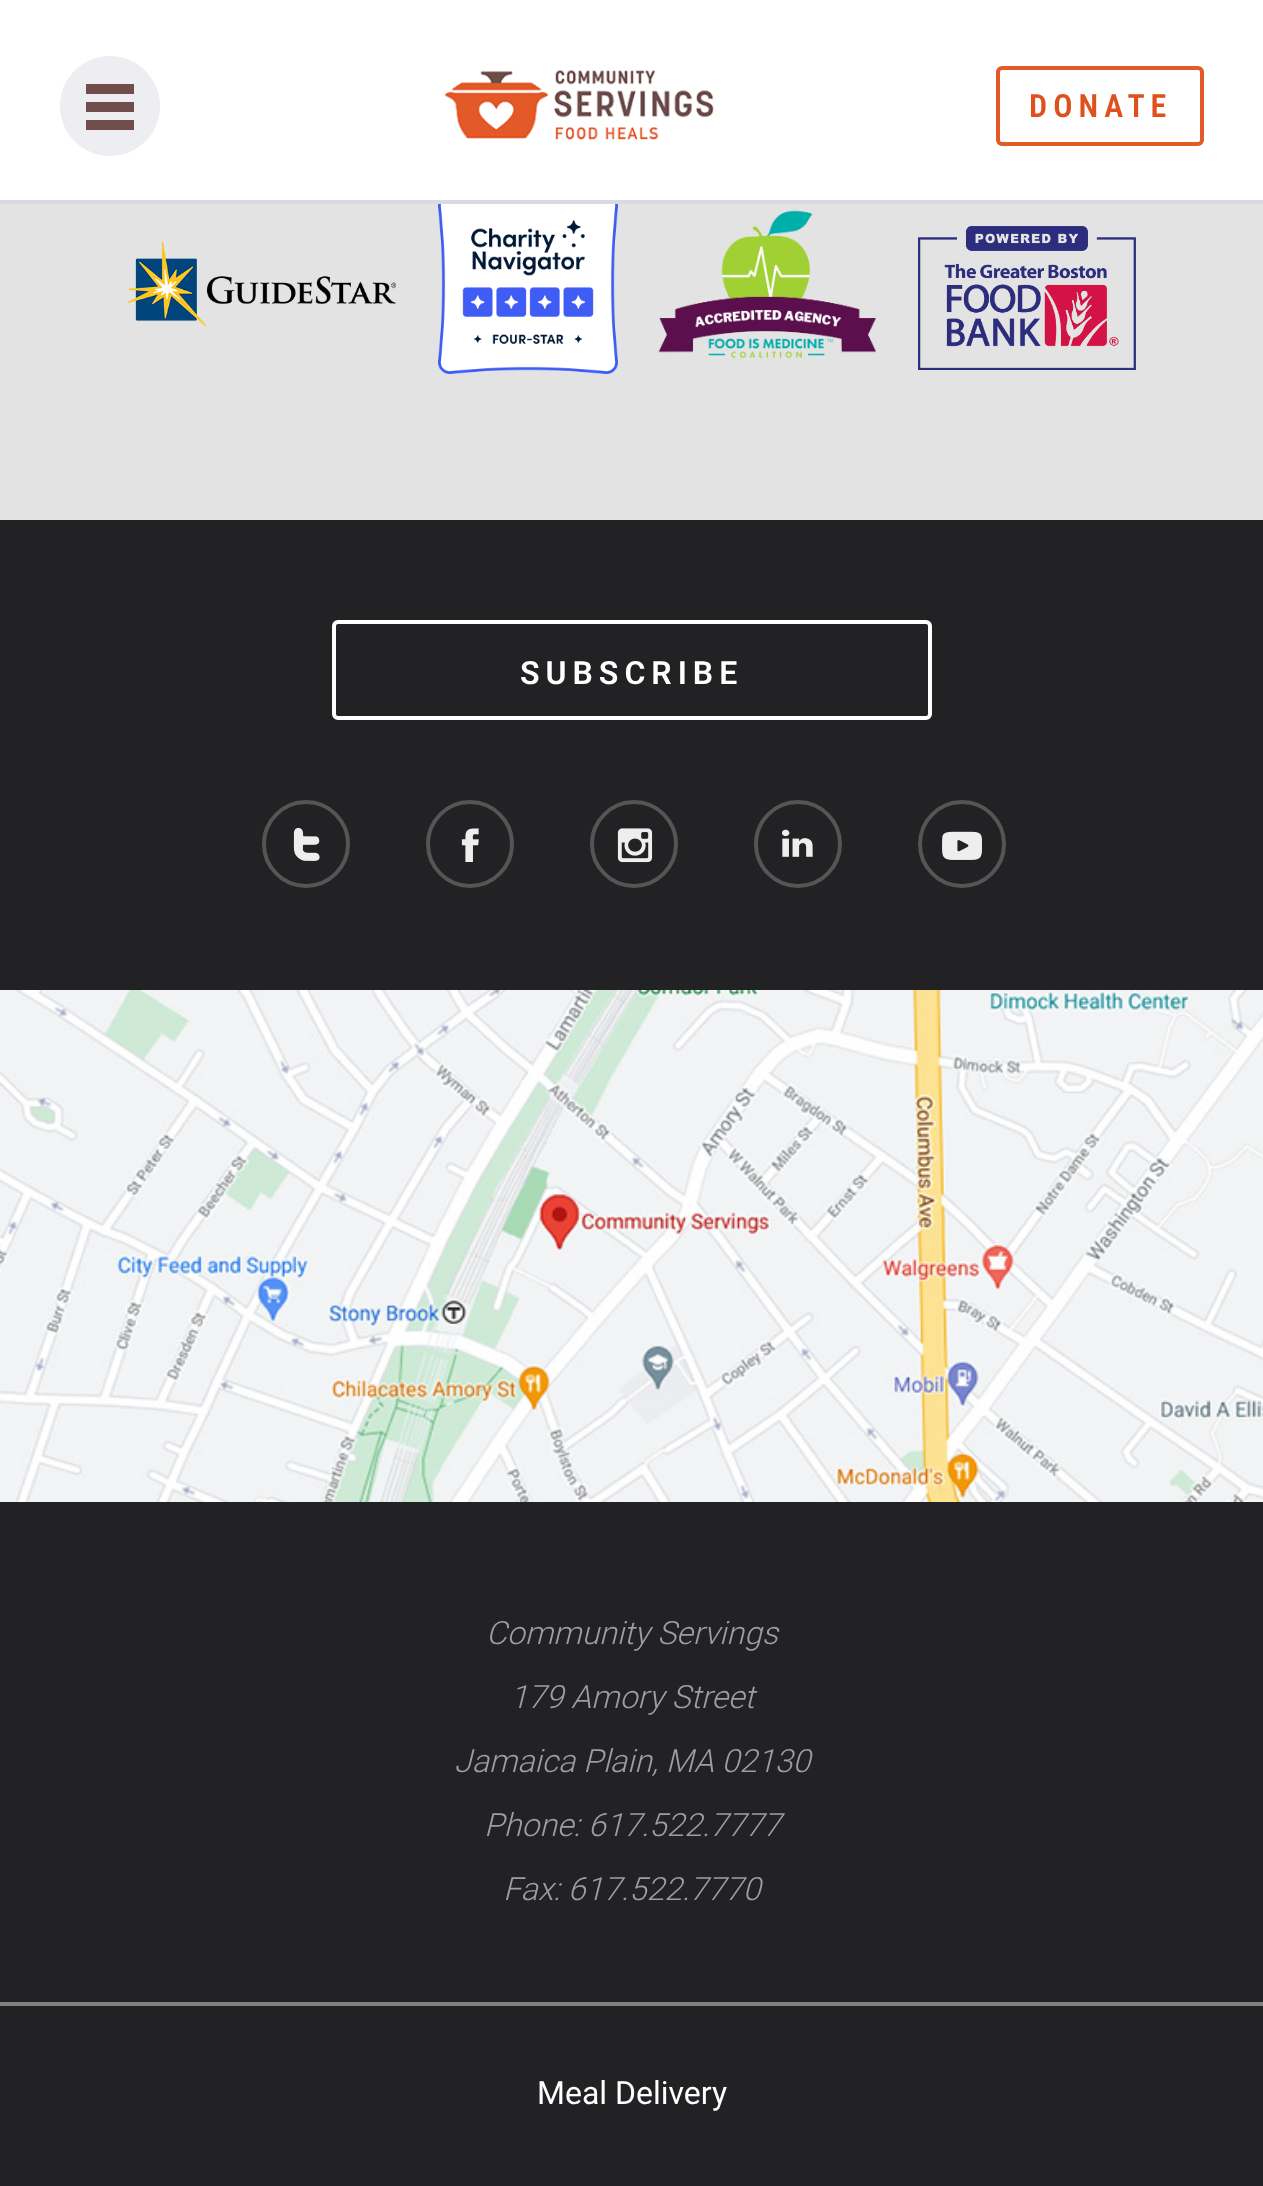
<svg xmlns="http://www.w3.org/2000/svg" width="1263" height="2186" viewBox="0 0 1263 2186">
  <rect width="100%" height="100%" fill="#e3e3e3"/>
  <rect x="0" y="0" width="1263" height="200" fill="#ffffff"/>
  <rect x="0" y="200" width="1263" height="4" fill="#d9d9e6"/>
  <circle cx="110" cy="106" r="50" fill="#eeeef2"/>
  <rect x="86" y="102" width="48" height="10" fill="#6e4d4b"/>
  <rect x="86" y="84" width="48" height="10" fill="#6e4d4b"/>
  <rect x="86" y="120" width="48" height="10" fill="#6e4d4b"/>
  <image x="444" y="69" width="270" height="71" href="img1.png"/>
  <rect x="998" y="68" width="204" height="76" rx="4" fill="none" stroke="#e35928" stroke-width="4"/>
  <text x="1029" y="117" font-family="Roboto Condensed" font-size="32" font-weight="600" letter-spacing="6" fill="#e0501d">DONATE</text>
  <image x="128" y="242" width="268" height="84" href="img2.png"/>
  <image x="438" y="204" width="180" height="170" href="img3.png"/>
  <image x="658" y="210" width="218" height="149" href="img4.png"/>
  <image x="918" y="226" width="218" height="144" href="img5.png"/>
  <rect x="0" y="520" width="1263" height="1666" fill="#222225"/>
  <rect x="334" y="622" width="596" height="96" rx="4" fill="none" stroke="#ffffff" stroke-width="4"/>
  <text x="520" y="684" font-family="Roboto" font-size="32" font-weight="600" letter-spacing="6" fill="#ffffff">SUBSCRIBE</text>
  <circle cx="306" cy="844" r="42" fill="none" stroke="#555555" stroke-width="4"/>
  <image x="293" y="827" width="27" height="34" href="img6.png"/>
  <circle cx="470" cy="844" r="42" fill="none" stroke="#555555" stroke-width="4"/>
  <image x="461" y="828" width="18" height="34" href="img7.png"/>
  <circle cx="634" cy="844" r="42" fill="none" stroke="#555555" stroke-width="4"/>
  <image x="617" y="828" width="36" height="35" href="img8.png"/>
  <circle cx="798" cy="844" r="42" fill="none" stroke="#555555" stroke-width="4"/>
  <image x="782" y="829" width="31" height="28" href="img9.png"/>
  <circle cx="962" cy="844" r="42" fill="none" stroke="#555555" stroke-width="4"/>
  <image x="942" y="831" width="40" height="29" href="img10.png"/>
  <image x="0" y="990" width="1263" height="512" href="img11.png"/>
  <rect x="0" y="2002" width="1263" height="4" fill="#808080"/>
  <text x="486" y="1644" font-family="Roboto" font-size="32" font-weight="300" font-style="italic" fill="#9e9da5">Community Servings</text>
  <text x="510" y="1708" font-family="Roboto" font-size="32" font-weight="300" font-style="italic" fill="#9e9da5">179 Amory Street</text>
  <text x="454" y="1772" font-family="Roboto" font-size="32" font-weight="300" font-style="italic" fill="#9e9da5">Jamaica Plain, MA 02130</text>
  <text x="484" y="1836" font-family="Roboto" font-size="32" font-weight="300" font-style="italic" fill="#9e9da5">Phone: 617.522.7777</text>
  <text x="503" y="1900" font-family="Roboto" font-size="32" font-weight="300" font-style="italic" fill="#9e9da5">Fax: 617.522.7770</text>
  <text x="537" y="2104" font-family="Roboto" font-size="32" fill="#ffffff">Meal Delivery</text>
</svg>
